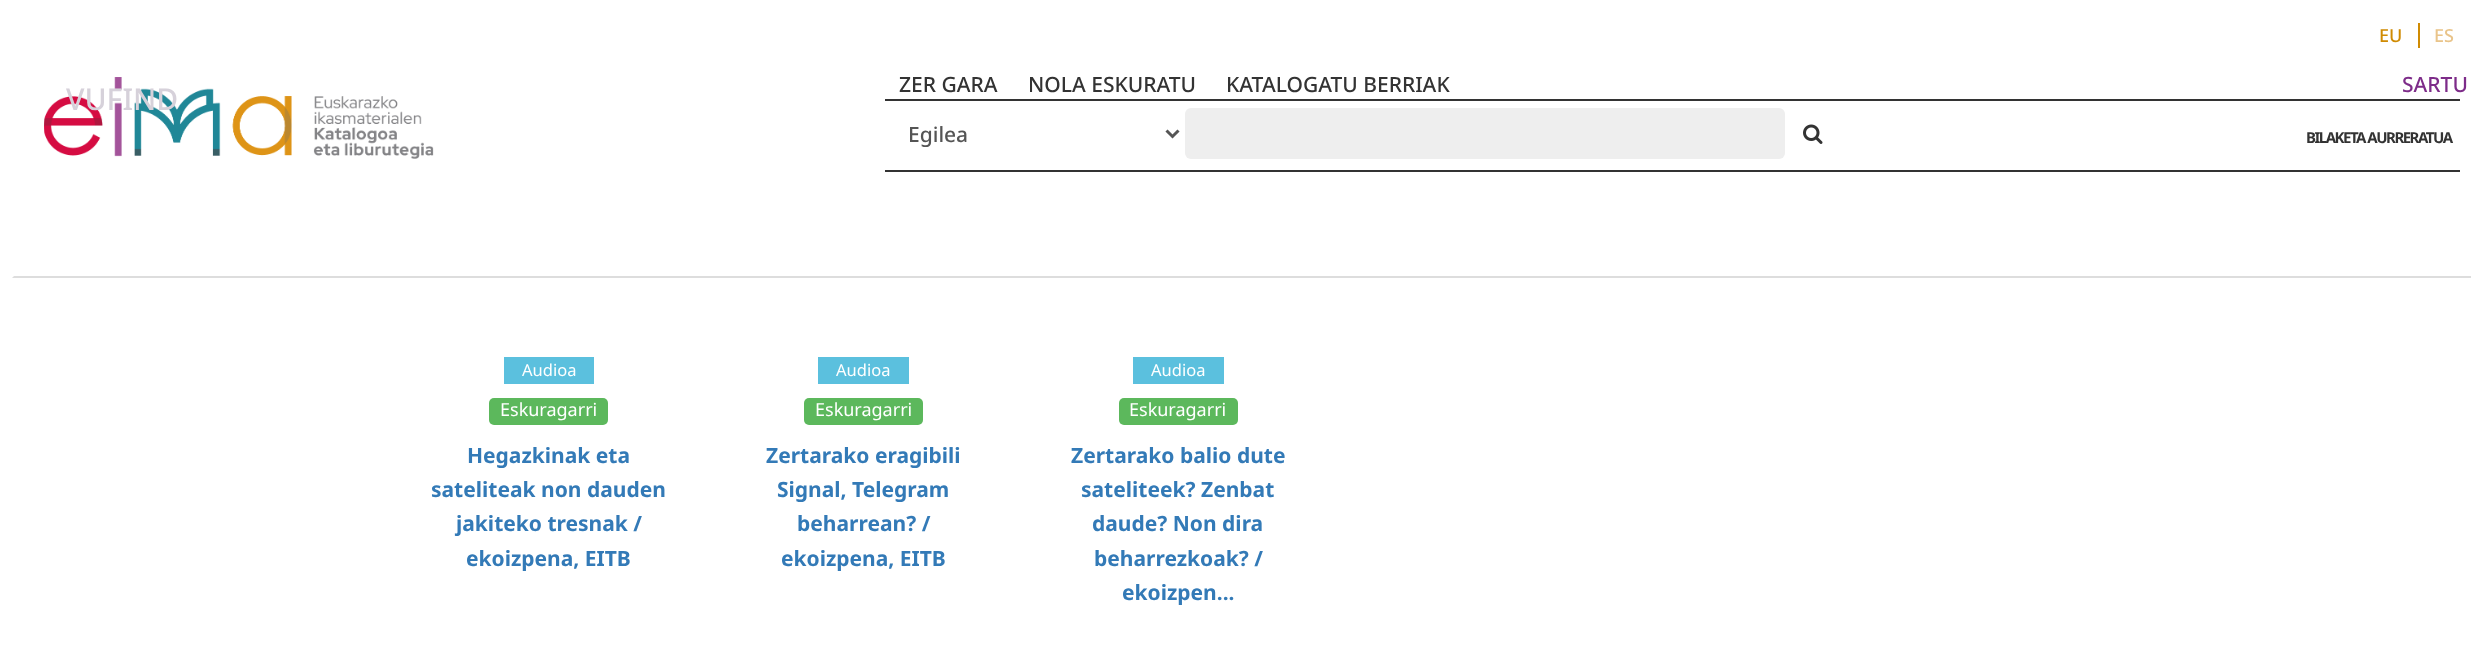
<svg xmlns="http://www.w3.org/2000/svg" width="2471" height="654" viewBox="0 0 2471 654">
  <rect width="100%" height="100%" fill="#ffffff"/>
  <rect x="2418" y="23" width="2" height="25" fill="#d08b03"/>
  <text x="2379" y="42" font-family="Noto Sans" font-size="18" font-weight="500" fill="#d08b03">EU</text>
  <text x="2434" y="42" font-family="Noto Sans" font-size="18" font-weight="500" fill="#e9c48a">ES</text>
  <path d="M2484 278H12L14 276H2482Z" fill="#dddddd"/>
  <image x="44" y="77" width="390" height="82" href="img1.png"/>
  <text x="66" y="110" font-family="Noto Sans" font-size="30" font-weight="500" fill="#d6d1da">VUFIND</text>
  <text x="899" y="92" font-family="Noto Sans" font-size="21" font-weight="500" fill="#333333">ZER GARA</text>
  <text x="1028" y="92" font-family="Noto Sans" font-size="21" font-weight="500" fill="#333333">NOLA ESKURATU</text>
  <text x="1226" y="92" font-family="Noto Sans" font-size="21" font-weight="500" fill="#333333">KATALOGATU BERRIAK</text>
  <text x="2402" y="92" font-family="Noto Sans" font-size="21" font-weight="500" fill="#7d2c89">SARTU</text>
  <rect x="885" y="99" width="1575" height="2" fill="#333333"/>
  <rect x="885" y="170" width="1575" height="2" fill="#333333"/>
  <path d="M1166.5 130.5L1172.5 136.5L1178.5 130.5" fill="none" stroke="#555555" stroke-width="3"/>
  <text x="908" y="142" font-family="Noto Sans" font-size="21" font-weight="500" fill="#555555">Egilea</text>
  <rect x="1185" y="108" width="600" height="51" rx="6" fill="#eeeeee"/>
  <image x="1803" y="124" width="20" height="20" href="img2.png"/>
  <text x="2306" y="143" font-family="Noto Sans" font-size="15" font-weight="bold" letter-spacing="-1.5" fill="#333333">BILAKETA AURRERATUA</text>
  <rect x="504" y="357" width="90" height="27" fill="#5bc0de"/>
  <text x="522" y="376" font-family="Noto Sans" font-size="16.5" fill="#ffffff">Audioa</text>
  <rect x="489" y="398" width="119" height="27" rx="5" fill="#5cb85c"/>
  <text x="500" y="416" font-family="Noto Sans" font-size="18" fill="#ffffff">Eskuragarri</text>
  <text x="467" y="463" font-family="Noto Sans" font-size="21" font-weight="bold" fill="#337ab7">Hegazkinak eta</text>
  <text x="431" y="497" font-family="Noto Sans" font-size="21" font-weight="bold" fill="#337ab7">sateliteak non dauden</text>
  <text x="456" y="531" font-family="Noto Sans" font-size="21" font-weight="bold" fill="#337ab7">jakiteko tresnak /</text>
  <text x="466" y="566" font-family="Noto Sans" font-size="21" font-weight="bold" fill="#337ab7">ekoizpena, EITB</text>
  <rect x="818" y="357" width="91" height="27" fill="#5bc0de"/>
  <text x="836" y="376" font-family="Noto Sans" font-size="16.5" fill="#ffffff">Audioa</text>
  <rect x="804" y="398" width="119" height="27" rx="5" fill="#5cb85c"/>
  <text x="815" y="416" font-family="Noto Sans" font-size="18" fill="#ffffff">Eskuragarri</text>
  <text x="766" y="463" font-family="Noto Sans" font-size="21" font-weight="bold" fill="#337ab7">Zertarako eragibili</text>
  <text x="777" y="497" font-family="Noto Sans" font-size="21" font-weight="bold" fill="#337ab7">Signal, Telegram</text>
  <text x="797" y="531" font-family="Noto Sans" font-size="21" font-weight="bold" fill="#337ab7">beharrean? /</text>
  <text x="781" y="566" font-family="Noto Sans" font-size="21" font-weight="bold" fill="#337ab7">ekoizpena, EITB</text>
  <rect x="1133" y="357" width="91" height="27" fill="#5bc0de"/>
  <text x="1151" y="376" font-family="Noto Sans" font-size="16.5" fill="#ffffff">Audioa</text>
  <rect x="1119" y="398" width="119" height="27" rx="5" fill="#5cb85c"/>
  <text x="1129" y="416" font-family="Noto Sans" font-size="18" fill="#ffffff">Eskuragarri</text>
  <text x="1071" y="463" font-family="Noto Sans" font-size="21" font-weight="bold" fill="#337ab7">Zertarako balio dute</text>
  <text x="1081" y="497" font-family="Noto Sans" font-size="21" font-weight="bold" fill="#337ab7">sateliteek? Zenbat</text>
  <text x="1092" y="531" font-family="Noto Sans" font-size="21" font-weight="bold" fill="#337ab7">daude? Non dira</text>
  <text x="1094" y="566" font-family="Noto Sans" font-size="21" font-weight="bold" fill="#337ab7">beharrezkoak? /</text>
  <text x="1122" y="600" font-family="Noto Sans" font-size="21" font-weight="bold" fill="#337ab7">ekoizpen...</text>
</svg>
